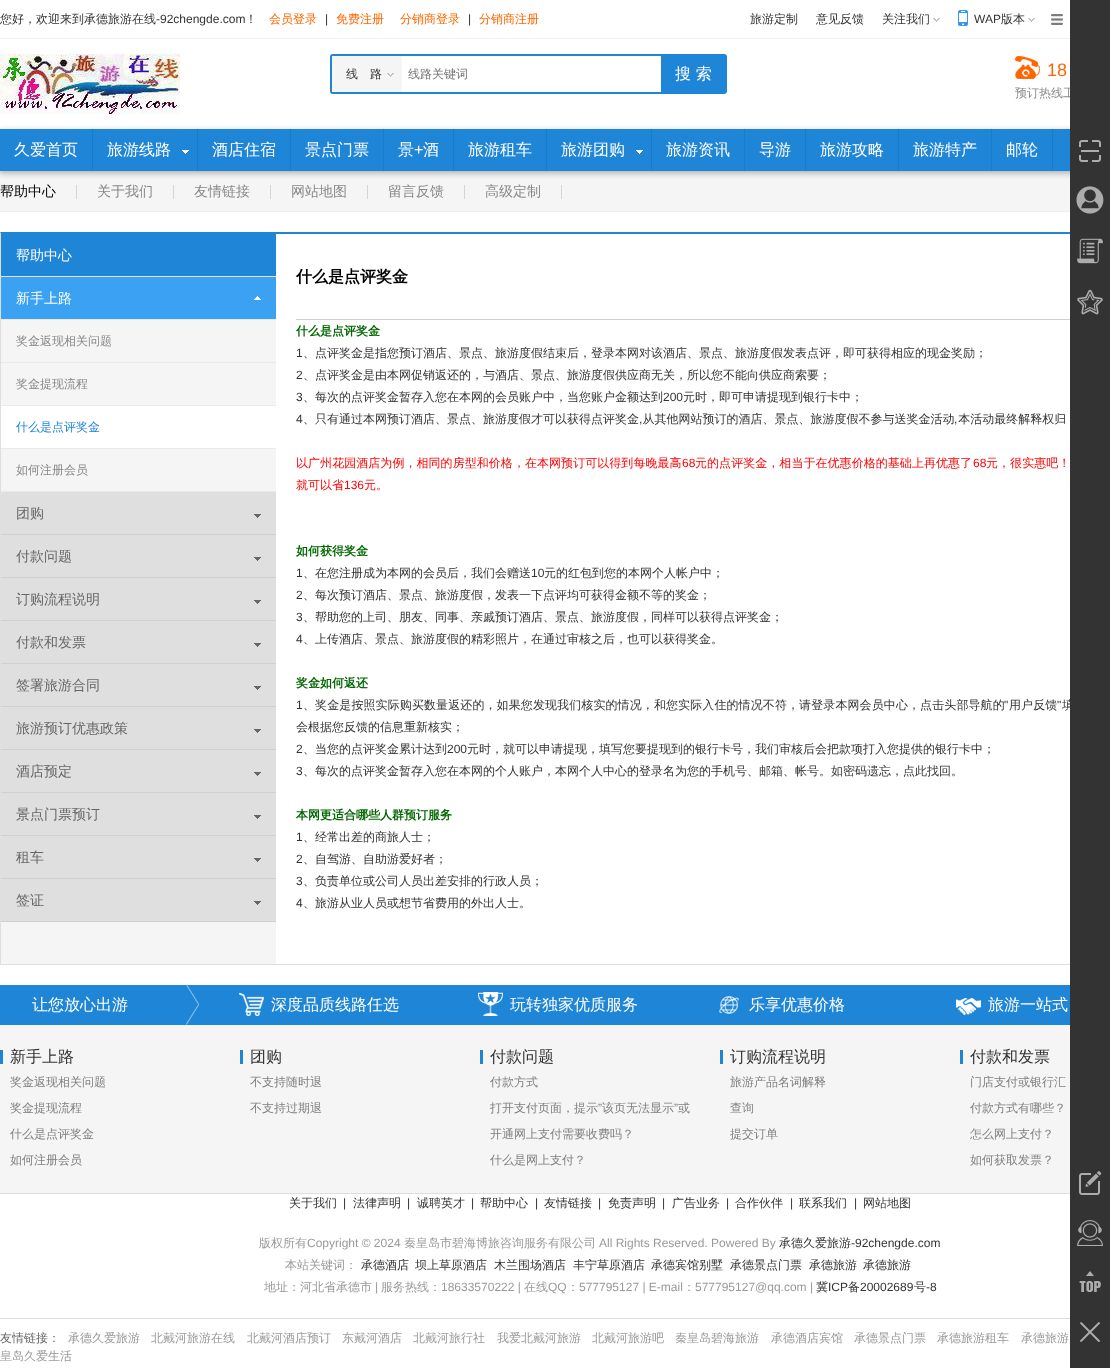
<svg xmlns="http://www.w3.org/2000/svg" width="1110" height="1368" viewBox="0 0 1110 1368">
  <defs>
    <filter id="blur1" x="-50%" y="-200%" width="200%" height="500%"><feGaussianBlur stdDeviation="3"/></filter>
  </defs>
  <rect width="100%" height="100%" fill="#ffffff"/>
  <rect x="0" y="38" width="1070" height="1" fill="#f1f1f0"/>
  <text x="0" y="23" font-family="WenQuanYi Zen Hei" font-size="12" font-weight="500" fill="#333333">您好，欢迎来到承德旅游在线</text>
  <text x="156" y="23" font-family="Liberation Sans" font-size="12" fill="#333333">-92chengde.com</text>
  <text x="245" y="23" font-family="WenQuanYi Zen Hei" font-size="12" font-weight="500" fill="#333333">！</text>
  <text x="269" y="23" font-family="WenQuanYi Zen Hei" font-size="12" font-weight="500" fill="#ff6600">会员登录</text>
  <text x="325" y="23" font-family="Liberation Sans" font-size="12" fill="#333333">|</text>
  <text x="336" y="23" font-family="WenQuanYi Zen Hei" font-size="12" font-weight="500" fill="#ff6600">免费注册</text>
  <text x="400" y="23" font-family="WenQuanYi Zen Hei" font-size="12" font-weight="500" fill="#ff6600">分销商登录</text>
  <text x="468" y="23" font-family="Liberation Sans" font-size="12" fill="#333333">|</text>
  <text x="479" y="23" font-family="WenQuanYi Zen Hei" font-size="12" font-weight="500" fill="#ff6600">分销商注册</text>
  <text x="750" y="23" font-family="WenQuanYi Zen Hei" font-size="12" font-weight="500" fill="#333333">旅游定制</text>
  <text x="816" y="23" font-family="WenQuanYi Zen Hei" font-size="12" font-weight="500" fill="#333333">意见反馈</text>
  <text x="882" y="23" font-family="WenQuanYi Zen Hei" font-size="12" font-weight="500" fill="#333333">关注我们</text>
  <image x="933" y="18" width="7" height="4" href="img1.png"/>
  <image x="958" y="10" width="10" height="16" href="img2.png"/>
  <text x="974" y="23" font-family="Liberation Sans" font-size="12" fill="#333333">WAP</text>
  <text x="1001" y="23" font-family="WenQuanYi Zen Hei" font-size="12" font-weight="500" fill="#333333">版本</text>
  <image x="1028" y="18" width="7" height="4" href="img1.png"/>
  <image x="1051" y="14" width="12" height="11" href="img3.png"/>
  <image x="0" y="54" width="180" height="60" href="img4.png"/>
  <rect x="331" y="55" width="395" height="38" rx="2" fill="none" stroke="#1f85d7" stroke-width="2"/>
  <rect x="332" y="56" width="70" height="36" fill="#f5f5f5"/>
  <image x="387" y="73" width="7" height="4" href="img5.png"/>
  <text x="346" y="78" font-family="WenQuanYi Zen Hei" font-size="12" font-weight="500" fill="#333333">线　路</text>
  <text x="408" y="78" font-family="WenQuanYi Zen Hei" font-size="12" font-weight="500" fill="#757575">线路关键词</text>
  <rect x="661" y="56" width="64" height="36" fill="#1f85d7"/>
  <text x="675" y="79" font-family="WenQuanYi Zen Hei" font-size="16" font-weight="500" fill="#ffffff">搜 索</text>
  <image x="1015" y="56" width="25" height="23" href="img6.png"/>
  <text x="1047" y="76" font-family="Liberation Sans" font-size="18" fill="#ff6600">18</text>
  <text x="1015" y="97" font-family="WenQuanYi Zen Hei" font-size="12" font-weight="500" fill="#888888">预订热线工</text>
  <rect x="0" y="171" width="1070" height="40" fill="#f5f5f5"/>
  <rect x="-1" y="131" width="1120" height="42" fill="#000000" fill-opacity="0.3" filter="url(#blur1)"/>
  <rect x="0" y="129" width="1070" height="42" fill="#1f85d7"/>
  <rect x="92" y="129" width="1" height="42" fill="#167cce"/>
  <text x="14" y="155" font-family="WenQuanYi Zen Hei" font-size="16" font-weight="500" fill="#ffffff">久爱首页</text>
  <rect x="197" y="129" width="1" height="42" fill="#167cce"/>
  <text x="107" y="155" font-family="WenQuanYi Zen Hei" font-size="16" font-weight="500" fill="#ffffff">旅游线路</text>
  <image x="182" y="150" width="7" height="4" href="img7.png"/>
  <rect x="290" y="129" width="1" height="42" fill="#167cce"/>
  <text x="212" y="155" font-family="WenQuanYi Zen Hei" font-size="16" font-weight="500" fill="#ffffff">酒店住宿</text>
  <rect x="383" y="129" width="1" height="42" fill="#167cce"/>
  <text x="305" y="155" font-family="WenQuanYi Zen Hei" font-size="16" font-weight="500" fill="#ffffff">景点门票</text>
  <rect x="453" y="129" width="1" height="42" fill="#167cce"/>
  <text x="398" y="155" font-family="WenQuanYi Zen Hei" font-size="16" font-weight="500" fill="#ffffff">景</text>
  <text x="414" y="155" font-family="Liberation Sans" font-size="16" fill="#ffffff">+</text>
  <text x="423" y="155" font-family="WenQuanYi Zen Hei" font-size="16" font-weight="500" fill="#ffffff">酒</text>
  <rect x="546" y="129" width="1" height="42" fill="#167cce"/>
  <text x="468" y="155" font-family="WenQuanYi Zen Hei" font-size="16" font-weight="500" fill="#ffffff">旅游租车</text>
  <rect x="651" y="129" width="1" height="42" fill="#167cce"/>
  <text x="561" y="155" font-family="WenQuanYi Zen Hei" font-size="16" font-weight="500" fill="#ffffff">旅游团购</text>
  <image x="636" y="150" width="7" height="4" href="img7.png"/>
  <rect x="744" y="129" width="1" height="42" fill="#167cce"/>
  <text x="666" y="155" font-family="WenQuanYi Zen Hei" font-size="16" font-weight="500" fill="#ffffff">旅游资讯</text>
  <rect x="805" y="129" width="1" height="42" fill="#167cce"/>
  <text x="759" y="155" font-family="WenQuanYi Zen Hei" font-size="16" font-weight="500" fill="#ffffff">导游</text>
  <rect x="898" y="129" width="1" height="42" fill="#167cce"/>
  <text x="820" y="155" font-family="WenQuanYi Zen Hei" font-size="16" font-weight="500" fill="#ffffff">旅游攻略</text>
  <rect x="991" y="129" width="1" height="42" fill="#167cce"/>
  <text x="913" y="155" font-family="WenQuanYi Zen Hei" font-size="16" font-weight="500" fill="#ffffff">旅游特产</text>
  <rect x="1052" y="129" width="1" height="42" fill="#167cce"/>
  <text x="1006" y="155" font-family="WenQuanYi Zen Hei" font-size="16" font-weight="500" fill="#ffffff">邮轮</text>
  <path d="M0 232H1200L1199 234H1Z" fill="#1f85d7"/>
  <rect x="1070" y="0" width="40" height="1368" fill="#333333"/>
  <image x="1079" y="140" width="22" height="22" href="img8.png"/>
  <image x="1076" y="186" width="28" height="28" href="img9.png"/>
  <image x="1077" y="238" width="26" height="26" href="img10.png"/>
  <image x="1077" y="289" width="26" height="26" href="img11.png"/>
  <image x="1079" y="1171" width="23" height="24" href="img12.png"/>
  <image x="1077" y="1220" width="26" height="26" href="img13.png"/>
  <image x="1079" y="1271" width="22" height="21" href="img14.png"/>
  <image x="1080" y="1322" width="20" height="20" href="img15.png"/>
  <rect x="0" y="211" width="1070" height="1" fill="#efefef"/>
  <rect x="76" y="185" width="1" height="14" fill="#d5d5d5"/>
  <text x="0" y="196" font-family="WenQuanYi Zen Hei" font-size="14" font-weight="500" fill="#000000">帮助中心</text>
  <rect x="173" y="185" width="1" height="14" fill="#d5d5d5"/>
  <text x="97" y="196" font-family="WenQuanYi Zen Hei" font-size="14" font-weight="500" fill="#888888">关于我们</text>
  <rect x="270" y="185" width="1" height="14" fill="#d5d5d5"/>
  <text x="194" y="196" font-family="WenQuanYi Zen Hei" font-size="14" font-weight="500" fill="#888888">友情链接</text>
  <rect x="367" y="185" width="1" height="14" fill="#d5d5d5"/>
  <text x="291" y="196" font-family="WenQuanYi Zen Hei" font-size="14" font-weight="500" fill="#888888">网站地图</text>
  <rect x="464" y="185" width="1" height="14" fill="#d5d5d5"/>
  <text x="388" y="196" font-family="WenQuanYi Zen Hei" font-size="14" font-weight="500" fill="#888888">留言反馈</text>
  <rect x="561" y="185" width="1" height="14" fill="#d5d5d5"/>
  <text x="485" y="196" font-family="WenQuanYi Zen Hei" font-size="14" font-weight="500" fill="#888888">高级定制</text>
  <rect x="1" y="320" width="275" height="644" fill="#f5f5f5"/>
  <rect x="0" y="964" width="1070" height="1" fill="#dfdfdf"/>
  <path d="M0 965V232L1 234V964Z" fill="#dfdfdf"/>
  <rect x="1" y="234" width="275" height="42" fill="#1f85d7"/>
  <rect x="1" y="276" width="275" height="1" fill="#e5e5e5"/>
  <text x="16" y="260" font-family="WenQuanYi Zen Hei" font-size="14" font-weight="500" fill="#ffffff">帮助中心</text>
  <rect x="1" y="277" width="275" height="42" fill="#3ba1f3"/>
  <rect x="1" y="319" width="275" height="1" fill="#eaeaea"/>
  <image x="254" y="296" width="7" height="4" href="img16.png"/>
  <text x="16" y="303" font-family="WenQuanYi Zen Hei" font-size="14" font-weight="500" fill="#ffffff">新手上路</text>
  <rect x="1" y="362" width="275" height="1" fill="#eaeaea"/>
  <text x="16" y="345" font-family="WenQuanYi Zen Hei" font-size="12" font-weight="500" fill="#888888">奖金返现相关问题</text>
  <rect x="1" y="405" width="275" height="1" fill="#eaeaea"/>
  <text x="16" y="388" font-family="WenQuanYi Zen Hei" font-size="12" font-weight="500" fill="#888888">奖金提现流程</text>
  <rect x="1" y="406" width="275" height="42" fill="#ffffff"/>
  <rect x="1" y="448" width="275" height="1" fill="#eaeaea"/>
  <text x="16" y="431" font-family="WenQuanYi Zen Hei" font-size="12" font-weight="500" fill="#1f85d7">什么是点评奖金</text>
  <rect x="1" y="491" width="275" height="1" fill="#eaeaea"/>
  <text x="16" y="474" font-family="WenQuanYi Zen Hei" font-size="12" font-weight="500" fill="#888888">如何注册会员</text>
  <rect x="1" y="492" width="275" height="42" fill="#dfdfdf"/>
  <rect x="1" y="534" width="275" height="1" fill="#d0d0d0"/>
  <image x="254" y="514" width="7" height="4" href="img17.png"/>
  <text x="16" y="518" font-family="WenQuanYi Zen Hei" font-size="14" font-weight="500" fill="#666666">团购</text>
  <rect x="1" y="535" width="275" height="42" fill="#dfdfdf"/>
  <rect x="1" y="577" width="275" height="1" fill="#d0d0d0"/>
  <image x="254" y="557" width="7" height="4" href="img17.png"/>
  <text x="16" y="561" font-family="WenQuanYi Zen Hei" font-size="14" font-weight="500" fill="#666666">付款问题</text>
  <rect x="1" y="578" width="275" height="42" fill="#dfdfdf"/>
  <rect x="1" y="620" width="275" height="1" fill="#d0d0d0"/>
  <image x="254" y="600" width="7" height="4" href="img17.png"/>
  <text x="16" y="604" font-family="WenQuanYi Zen Hei" font-size="14" font-weight="500" fill="#666666">订购流程说明</text>
  <rect x="1" y="621" width="275" height="42" fill="#dfdfdf"/>
  <rect x="1" y="663" width="275" height="1" fill="#d0d0d0"/>
  <image x="254" y="643" width="7" height="4" href="img17.png"/>
  <text x="16" y="647" font-family="WenQuanYi Zen Hei" font-size="14" font-weight="500" fill="#666666">付款和发票</text>
  <rect x="1" y="664" width="275" height="42" fill="#dfdfdf"/>
  <rect x="1" y="706" width="275" height="1" fill="#d0d0d0"/>
  <image x="254" y="686" width="7" height="4" href="img17.png"/>
  <text x="16" y="690" font-family="WenQuanYi Zen Hei" font-size="14" font-weight="500" fill="#666666">签署旅游合同</text>
  <rect x="1" y="707" width="275" height="42" fill="#dfdfdf"/>
  <rect x="1" y="749" width="275" height="1" fill="#d0d0d0"/>
  <image x="254" y="729" width="7" height="4" href="img17.png"/>
  <text x="16" y="733" font-family="WenQuanYi Zen Hei" font-size="14" font-weight="500" fill="#666666">旅游预订优惠政策</text>
  <rect x="1" y="750" width="275" height="42" fill="#dfdfdf"/>
  <rect x="1" y="792" width="275" height="1" fill="#d0d0d0"/>
  <image x="254" y="772" width="7" height="4" href="img17.png"/>
  <text x="16" y="776" font-family="WenQuanYi Zen Hei" font-size="14" font-weight="500" fill="#666666">酒店预定</text>
  <rect x="1" y="793" width="275" height="42" fill="#dfdfdf"/>
  <rect x="1" y="835" width="275" height="1" fill="#d0d0d0"/>
  <image x="254" y="815" width="7" height="4" href="img17.png"/>
  <text x="16" y="819" font-family="WenQuanYi Zen Hei" font-size="14" font-weight="500" fill="#666666">景点门票预订</text>
  <rect x="1" y="836" width="275" height="42" fill="#dfdfdf"/>
  <rect x="1" y="878" width="275" height="1" fill="#d0d0d0"/>
  <image x="254" y="858" width="7" height="4" href="img17.png"/>
  <text x="16" y="862" font-family="WenQuanYi Zen Hei" font-size="14" font-weight="500" fill="#666666">租车</text>
  <rect x="1" y="879" width="275" height="42" fill="#dfdfdf"/>
  <rect x="1" y="921" width="275" height="1" fill="#d0d0d0"/>
  <image x="254" y="901" width="7" height="4" href="img17.png"/>
  <text x="16" y="905" font-family="WenQuanYi Zen Hei" font-size="14" font-weight="500" fill="#666666">签证</text>
  <rect x="296" y="319" width="774" height="1" fill="#d0d0d0"/>
  <text x="296" y="282" font-family="WenQuanYi Zen Hei" font-size="16" font-weight="bold" fill="#000000">什么是点评奖金</text>
  <text x="296" y="335" font-family="WenQuanYi Zen Hei" font-size="12" font-weight="bold" fill="#006600">什么是点评奖金</text>
  <text x="296" y="357" font-family="Liberation Sans" font-size="12" fill="#333333">1</text>
  <text x="303" y="357" font-family="WenQuanYi Zen Hei" font-size="12" font-weight="500" fill="#333333">、点评奖金是指您预订酒店、景点、旅游度假结束后，登录本网对该酒店、景点、旅游度假发表点评，即可获得相应的现金奖励；</text>
  <text x="296" y="379" font-family="Liberation Sans" font-size="12" fill="#333333">2</text>
  <text x="303" y="379" font-family="WenQuanYi Zen Hei" font-size="12" font-weight="500" fill="#333333">、点评奖金是由本网促销返还的，与酒店、景点、旅游度假供应商无关，所以您不能向供应商索要；</text>
  <text x="296" y="401" font-family="Liberation Sans" font-size="12" fill="#333333">3</text>
  <text x="303" y="401" font-family="WenQuanYi Zen Hei" font-size="12" font-weight="500" fill="#333333">、每次的点评奖金暂存入您在本网的会员账户中，当您账户金额达到</text>
  <text x="663" y="401" font-family="Liberation Sans" font-size="12" fill="#333333">200</text>
  <text x="683" y="401" font-family="WenQuanYi Zen Hei" font-size="12" font-weight="500" fill="#333333">元时，即可申请提现到银行卡中；</text>
  <text x="296" y="423" font-family="Liberation Sans" font-size="12" fill="#333333">4</text>
  <text x="303" y="423" font-family="WenQuanYi Zen Hei" font-size="12" font-weight="500" fill="#333333">、只有通过本网预订酒店、景点、旅游度假才可以获得点评奖金 从其他网站预订的酒店、景点、旅游度假不参与送奖金活动 本活动最终解释权归</text>
  <text x="639" y="423" font-family="Liberation Sans" font-size="12" fill="#333333">,</text>
  <text x="954" y="423" font-family="Liberation Sans" font-size="12" fill="#333333">,</text>
  <text x="296" y="467" font-family="WenQuanYi Zen Hei" font-size="12" font-weight="500" letter-spacing="0.05" fill="#ff0000">以广州花园酒店为例，相同的房型和价格，在本网预订可以得到每晚最高</text>
  <text x="682" y="467" font-family="Liberation Sans" font-size="12" letter-spacing="0.05" fill="#ff0000">68</text>
  <text x="695" y="467" font-family="WenQuanYi Zen Hei" font-size="12" font-weight="500" letter-spacing="0.05" fill="#ff0000">元的点评奖金，相当于在优惠价格的基础上再优惠了</text>
  <text x="973" y="467" font-family="Liberation Sans" font-size="12" letter-spacing="0.05" fill="#ff0000">68</text>
  <text x="986" y="467" font-family="WenQuanYi Zen Hei" font-size="12" font-weight="500" letter-spacing="0.05" fill="#ff0000">元，很实惠吧！</text>
  <text x="296" y="489" font-family="WenQuanYi Zen Hei" font-size="12" font-weight="500" fill="#ff0000">就可以省</text>
  <text x="344" y="489" font-family="Liberation Sans" font-size="12" fill="#ff0000">136</text>
  <text x="364" y="489" font-family="WenQuanYi Zen Hei" font-size="12" font-weight="500" fill="#ff0000">元。</text>
  <text x="296" y="555" font-family="WenQuanYi Zen Hei" font-size="12" font-weight="bold" fill="#006600">如何获得奖金</text>
  <text x="296" y="577" font-family="Liberation Sans" font-size="12" fill="#333333">1</text>
  <text x="303" y="577" font-family="WenQuanYi Zen Hei" font-size="12" font-weight="500" fill="#333333">、在您注册成为本网的会员后，我们会赠送</text>
  <text x="531" y="577" font-family="Liberation Sans" font-size="12" fill="#333333">10</text>
  <text x="544" y="577" font-family="WenQuanYi Zen Hei" font-size="12" font-weight="500" fill="#333333">元的红包到您的本网个人帐户中；</text>
  <text x="296" y="599" font-family="Liberation Sans" font-size="12" fill="#333333">2</text>
  <text x="303" y="599" font-family="WenQuanYi Zen Hei" font-size="12" font-weight="500" fill="#333333">、每次预订酒店、景点、旅游度假，发表一下点评均可获得金额不等的奖金；</text>
  <text x="296" y="621" font-family="Liberation Sans" font-size="12" fill="#333333">3</text>
  <text x="303" y="621" font-family="WenQuanYi Zen Hei" font-size="12" font-weight="500" fill="#333333">、帮助您的上司、朋友、同事、亲戚预订酒店、景点、旅游度假，同样可以获得点评奖金；</text>
  <text x="296" y="643" font-family="Liberation Sans" font-size="12" fill="#333333">4</text>
  <text x="303" y="643" font-family="WenQuanYi Zen Hei" font-size="12" font-weight="500" fill="#333333">、上传酒店、景点、旅游度假的精彩照片，在通过审核之后，也可以获得奖金。</text>
  <text x="296" y="687" font-family="WenQuanYi Zen Hei" font-size="12" font-weight="bold" fill="#006600">奖金如何返还</text>
  <text x="296" y="709" font-family="Liberation Sans" font-size="12" letter-spacing="0.1" fill="#333333">1</text>
  <text x="303" y="709" font-family="WenQuanYi Zen Hei" font-size="12" font-weight="500" letter-spacing="0.1" fill="#333333">、奖金是按照实际购买数量返还的，如果您发现我们核实的情况，和您实际入住的情况不符，请登录本网会员中心，点击头部导航的</text>
  <text x="1004" y="709" font-family="Liberation Sans" font-size="12" letter-spacing="0.1" fill="#333333">"</text>
  <text x="1009" y="709" font-family="WenQuanYi Zen Hei" font-size="12" font-weight="500" letter-spacing="0.1" fill="#333333">用户反馈</text>
  <text x="1057" y="709" font-family="Liberation Sans" font-size="12" letter-spacing="0.1" fill="#333333">"</text>
  <text x="1062" y="709" font-family="WenQuanYi Zen Hei" font-size="12" font-weight="500" letter-spacing="0.1" fill="#333333">填</text>
  <text x="296" y="731" font-family="WenQuanYi Zen Hei" font-size="12" font-weight="500" fill="#333333">会根据您反馈的信息重新核实；</text>
  <text x="296" y="753" font-family="Liberation Sans" font-size="12" fill="#333333">2</text>
  <text x="303" y="753" font-family="WenQuanYi Zen Hei" font-size="12" font-weight="500" fill="#333333">、当您的点评奖金累计达到</text>
  <text x="447" y="753" font-family="Liberation Sans" font-size="12" fill="#333333">200</text>
  <text x="467" y="753" font-family="WenQuanYi Zen Hei" font-size="12" font-weight="500" fill="#333333">元时，就可以申请提现，填写您要提现到的银行卡号，我们审核后会把款项打入您提供的银行卡中；</text>
  <text x="296" y="775" font-family="Liberation Sans" font-size="12" fill="#333333">3</text>
  <text x="303" y="775" font-family="WenQuanYi Zen Hei" font-size="12" font-weight="500" fill="#333333">、每次的点评奖金暂存入您在本网的个人账户，本网个人中心的登录名为您的手机号、邮箱、帐号。如密码遗忘，点此找回。</text>
  <text x="296" y="819" font-family="WenQuanYi Zen Hei" font-size="12" font-weight="bold" fill="#006600">本网更适合哪些人群预订服务</text>
  <text x="296" y="841" font-family="Liberation Sans" font-size="12" fill="#333333">1</text>
  <text x="303" y="841" font-family="WenQuanYi Zen Hei" font-size="12" font-weight="500" fill="#333333">、经常出差的商旅人士；</text>
  <text x="296" y="863" font-family="Liberation Sans" font-size="12" fill="#333333">2</text>
  <text x="303" y="863" font-family="WenQuanYi Zen Hei" font-size="12" font-weight="500" fill="#333333">、自驾游、自助游爱好者；</text>
  <text x="296" y="885" font-family="Liberation Sans" font-size="12" fill="#333333">3</text>
  <text x="303" y="885" font-family="WenQuanYi Zen Hei" font-size="12" font-weight="500" fill="#333333">、负责单位或公司人员出差安排的行政人员；</text>
  <text x="296" y="907" font-family="Liberation Sans" font-size="12" fill="#333333">4</text>
  <text x="303" y="907" font-family="WenQuanYi Zen Hei" font-size="12" font-weight="500" fill="#333333">、旅游从业人员或想节省费用的外出人士。</text>
  <rect x="0" y="985" width="1070" height="40" fill="#1f85d7"/>
  <image x="186" y="985" width="13" height="40" href="img18.png"/>
  <text x="32" y="1010" font-family="WenQuanYi Zen Hei" font-size="16" font-weight="500" fill="#ffffff">让您放心出游</text>
  <image x="239" y="993" width="25" height="23" href="img19.png"/>
  <text x="271" y="1010" font-family="WenQuanYi Zen Hei" font-size="16" font-weight="500" fill="#ffffff">深度品质线路任选</text>
  <image x="478" y="992" width="25" height="24" href="img20.png"/>
  <text x="510" y="1010" font-family="WenQuanYi Zen Hei" font-size="16" font-weight="500" fill="#ffffff">玩转独家优质服务</text>
  <image x="719" y="996" width="20" height="18" href="img21.png"/>
  <text x="749" y="1010" font-family="WenQuanYi Zen Hei" font-size="16" font-weight="500" fill="#ffffff">乐享优惠价格</text>
  <image x="956" y="998" width="25" height="17" href="img22.png"/>
  <text x="988" y="1010" font-family="WenQuanYi Zen Hei" font-size="16" font-weight="500" fill="#ffffff">旅游一站式</text>
  <rect x="0" y="1025" width="1070" height="168" fill="#f5f5f5"/>
  <rect x="0" y="1193" width="1070" height="1" fill="#dedede"/>
  <rect x="0" y="1050" width="3" height="14" fill="#1f85d7"/>
  <text x="10" y="1062" font-family="WenQuanYi Zen Hei" font-size="16" font-weight="500" fill="#333333">新手上路</text>
  <text x="10" y="1086" font-family="WenQuanYi Zen Hei" font-size="12" font-weight="500" fill="#808080">奖金返现相关问题</text>
  <text x="10" y="1112" font-family="WenQuanYi Zen Hei" font-size="12" font-weight="500" fill="#808080">奖金提现流程</text>
  <text x="10" y="1138" font-family="WenQuanYi Zen Hei" font-size="12" font-weight="500" fill="#808080">什么是点评奖金</text>
  <text x="10" y="1164" font-family="WenQuanYi Zen Hei" font-size="12" font-weight="500" fill="#808080">如何注册会员</text>
  <rect x="240" y="1050" width="3" height="14" fill="#1f85d7"/>
  <text x="250" y="1062" font-family="WenQuanYi Zen Hei" font-size="16" font-weight="500" fill="#333333">团购</text>
  <text x="250" y="1086" font-family="WenQuanYi Zen Hei" font-size="12" font-weight="500" fill="#808080">不支持随时退</text>
  <text x="250" y="1112" font-family="WenQuanYi Zen Hei" font-size="12" font-weight="500" fill="#808080">不支持过期退</text>
  <rect x="480" y="1050" width="3" height="14" fill="#1f85d7"/>
  <text x="490" y="1062" font-family="WenQuanYi Zen Hei" font-size="16" font-weight="500" fill="#333333">付款问题</text>
  <text x="490" y="1086" font-family="WenQuanYi Zen Hei" font-size="12" font-weight="500" fill="#808080">付款方式</text>
  <text x="490" y="1112" font-family="WenQuanYi Zen Hei" font-size="12" font-weight="500" fill="#808080">打开支付页面，提示</text>
  <text x="598" y="1112" font-family="Liberation Sans" font-size="12" fill="#808080">”</text>
  <text x="602" y="1112" font-family="WenQuanYi Zen Hei" font-size="12" font-weight="500" fill="#808080">该页无法显示</text>
  <text x="674" y="1112" font-family="Liberation Sans" font-size="12" fill="#808080">”</text>
  <text x="678" y="1112" font-family="WenQuanYi Zen Hei" font-size="12" font-weight="500" fill="#808080">或</text>
  <text x="490" y="1138" font-family="WenQuanYi Zen Hei" font-size="12" font-weight="500" fill="#808080">开通网上支付需要收费吗？</text>
  <text x="490" y="1164" font-family="WenQuanYi Zen Hei" font-size="12" font-weight="500" fill="#808080">什么是网上支付？</text>
  <rect x="720" y="1050" width="3" height="14" fill="#1f85d7"/>
  <text x="730" y="1062" font-family="WenQuanYi Zen Hei" font-size="16" font-weight="500" fill="#333333">订购流程说明</text>
  <text x="730" y="1086" font-family="WenQuanYi Zen Hei" font-size="12" font-weight="500" fill="#808080">旅游产品名词解释</text>
  <text x="730" y="1112" font-family="WenQuanYi Zen Hei" font-size="12" font-weight="500" fill="#808080">查询</text>
  <text x="730" y="1138" font-family="WenQuanYi Zen Hei" font-size="12" font-weight="500" fill="#808080">提交订单</text>
  <rect x="960" y="1050" width="3" height="14" fill="#1f85d7"/>
  <text x="970" y="1062" font-family="WenQuanYi Zen Hei" font-size="16" font-weight="500" fill="#333333">付款和发票</text>
  <text x="970" y="1086" font-family="WenQuanYi Zen Hei" font-size="12" font-weight="500" fill="#808080">门店支付或银行汇</text>
  <text x="970" y="1112" font-family="WenQuanYi Zen Hei" font-size="12" font-weight="500" fill="#808080">付款方式有哪些？</text>
  <text x="970" y="1138" font-family="WenQuanYi Zen Hei" font-size="12" font-weight="500" fill="#808080">怎么网上支付？</text>
  <text x="970" y="1164" font-family="WenQuanYi Zen Hei" font-size="12" font-weight="500" fill="#808080">如何获取发票？</text>
  <text x="289" y="1207" font-family="WenQuanYi Zen Hei" font-size="12" font-weight="500" fill="#333333">关于我们</text>
  <text x="343" y="1207" font-family="Liberation Sans" font-size="12" fill="#333333">|</text>
  <text x="353" y="1207" font-family="WenQuanYi Zen Hei" font-size="12" font-weight="500" fill="#333333">法律声明</text>
  <text x="407" y="1207" font-family="Liberation Sans" font-size="12" fill="#333333">|</text>
  <text x="417" y="1207" font-family="WenQuanYi Zen Hei" font-size="12" font-weight="500" fill="#333333">诚聘英才</text>
  <text x="471" y="1207" font-family="Liberation Sans" font-size="12" fill="#333333">|</text>
  <text x="480" y="1207" font-family="WenQuanYi Zen Hei" font-size="12" font-weight="500" fill="#333333">帮助中心</text>
  <text x="535" y="1207" font-family="Liberation Sans" font-size="12" fill="#333333">|</text>
  <text x="544" y="1207" font-family="WenQuanYi Zen Hei" font-size="12" font-weight="500" fill="#333333">友情链接</text>
  <text x="598" y="1207" font-family="Liberation Sans" font-size="12" fill="#333333">|</text>
  <text x="608" y="1207" font-family="WenQuanYi Zen Hei" font-size="12" font-weight="500" fill="#333333">免责声明</text>
  <text x="662" y="1207" font-family="Liberation Sans" font-size="12" fill="#333333">|</text>
  <text x="672" y="1207" font-family="WenQuanYi Zen Hei" font-size="12" font-weight="500" fill="#333333">广告业务</text>
  <text x="726" y="1207" font-family="Liberation Sans" font-size="12" fill="#333333">|</text>
  <text x="735" y="1207" font-family="WenQuanYi Zen Hei" font-size="12" font-weight="500" fill="#333333">合作伙伴</text>
  <text x="790" y="1207" font-family="Liberation Sans" font-size="12" fill="#333333">|</text>
  <text x="799" y="1207" font-family="WenQuanYi Zen Hei" font-size="12" font-weight="500" fill="#333333">联系我们</text>
  <text x="854" y="1207" font-family="Liberation Sans" font-size="12" fill="#333333">|</text>
  <text x="863" y="1207" font-family="WenQuanYi Zen Hei" font-size="12" font-weight="500" fill="#333333">网站地图</text>
  <rect x="0" y="1318" width="1070" height="1" fill="#dedede"/>
  <text x="259" y="1247" font-family="WenQuanYi Zen Hei" font-size="12" font-weight="500" fill="#999999">版权所有</text>
  <text x="307" y="1247" font-family="Liberation Sans" font-size="12" fill="#999999">Copyright © 2024</text>
  <text x="404" y="1247" font-family="WenQuanYi Zen Hei" font-size="12" font-weight="500" fill="#999999">秦皇岛市碧海博旅咨询服务有限公司</text>
  <text x="599" y="1247" font-family="Liberation Sans" font-size="12" fill="#999999">All Rights Reserved. Powered By</text>
  <text x="779" y="1247" font-family="WenQuanYi Zen Hei" font-size="12" font-weight="500" fill="#333333">承德久爱旅游</text>
  <text x="851" y="1247" font-family="Liberation Sans" font-size="12" fill="#333333">-92chengde.com</text>
  <text x="285" y="1269" font-family="WenQuanYi Zen Hei" font-size="12" font-weight="500" fill="#999999">本站关键词：</text>
  <text x="361" y="1269" font-family="WenQuanYi Zen Hei" font-size="12" font-weight="500" fill="#333333">承德酒店</text>
  <text x="415" y="1269" font-family="WenQuanYi Zen Hei" font-size="12" font-weight="500" fill="#333333">坝上草原酒店</text>
  <text x="494" y="1269" font-family="WenQuanYi Zen Hei" font-size="12" font-weight="500" fill="#333333">木兰围场酒店</text>
  <text x="573" y="1269" font-family="WenQuanYi Zen Hei" font-size="12" font-weight="500" fill="#333333">丰宁草原酒店</text>
  <text x="651" y="1269" font-family="WenQuanYi Zen Hei" font-size="12" font-weight="500" fill="#333333">承德宾馆别墅</text>
  <text x="730" y="1269" font-family="WenQuanYi Zen Hei" font-size="12" font-weight="500" fill="#333333">承德景点门票</text>
  <text x="809" y="1269" font-family="WenQuanYi Zen Hei" font-size="12" font-weight="500" fill="#333333">承德旅游</text>
  <text x="863" y="1269" font-family="WenQuanYi Zen Hei" font-size="12" font-weight="500" fill="#333333">承德旅游</text>
  <text x="264" y="1291" font-family="WenQuanYi Zen Hei" font-size="12" font-weight="500" fill="#999999">地址：河北省承德市</text>
  <text x="375" y="1291" font-family="Liberation Sans" font-size="12" fill="#999999">|</text>
  <text x="381" y="1291" font-family="WenQuanYi Zen Hei" font-size="12" font-weight="500" fill="#999999">服务热线：</text>
  <text x="441" y="1291" font-family="Liberation Sans" font-size="12" fill="#999999">18633570222 |</text>
  <text x="524" y="1291" font-family="WenQuanYi Zen Hei" font-size="12" font-weight="500" fill="#999999">在线</text>
  <text x="548" y="1291" font-family="Liberation Sans" font-size="12" fill="#999999">QQ</text>
  <text x="567" y="1291" font-family="WenQuanYi Zen Hei" font-size="12" font-weight="500" fill="#999999">：</text>
  <text x="579" y="1291" font-family="Liberation Sans" font-size="12" fill="#999999">577795127 | E-mail</text>
  <text x="683" y="1291" font-family="WenQuanYi Zen Hei" font-size="12" font-weight="500" fill="#999999">：</text>
  <text x="695" y="1291" font-family="Liberation Sans" font-size="12" fill="#999999">577795127@qq.com |</text>
  <text x="816" y="1291" font-family="WenQuanYi Zen Hei" font-size="12" font-weight="500" fill="#333333">冀</text>
  <text x="828" y="1291" font-family="Liberation Sans" font-size="12" fill="#333333">ICP</text>
  <text x="848" y="1291" font-family="WenQuanYi Zen Hei" font-size="12" font-weight="500" fill="#333333">备</text>
  <text x="860" y="1291" font-family="Liberation Sans" font-size="12" fill="#333333">20002689</text>
  <text x="914" y="1291" font-family="WenQuanYi Zen Hei" font-size="12" font-weight="500" fill="#333333">号</text>
  <text x="926" y="1291" font-family="Liberation Sans" font-size="12" fill="#333333">-8</text>
  <text x="68" y="1342" font-family="WenQuanYi Zen Hei" font-size="12" font-weight="500" fill="#999999">承德久爱旅游</text>
  <text x="151" y="1342" font-family="WenQuanYi Zen Hei" font-size="12" font-weight="500" fill="#999999">北戴河旅游在线</text>
  <text x="247" y="1342" font-family="WenQuanYi Zen Hei" font-size="12" font-weight="500" fill="#999999">北戴河酒店预订</text>
  <text x="342" y="1342" font-family="WenQuanYi Zen Hei" font-size="12" font-weight="500" fill="#999999">东戴河酒店</text>
  <text x="413" y="1342" font-family="WenQuanYi Zen Hei" font-size="12" font-weight="500" fill="#999999">北戴河旅行社</text>
  <text x="497" y="1342" font-family="WenQuanYi Zen Hei" font-size="12" font-weight="500" fill="#999999">我爱北戴河旅游</text>
  <text x="592" y="1342" font-family="WenQuanYi Zen Hei" font-size="12" font-weight="500" fill="#999999">北戴河旅游吧</text>
  <text x="675" y="1342" font-family="WenQuanYi Zen Hei" font-size="12" font-weight="500" fill="#999999">秦皇岛碧海旅游</text>
  <text x="771" y="1342" font-family="WenQuanYi Zen Hei" font-size="12" font-weight="500" fill="#999999">承德酒店宾馆</text>
  <text x="854" y="1342" font-family="WenQuanYi Zen Hei" font-size="12" font-weight="500" fill="#999999">承德景点门票</text>
  <text x="937" y="1342" font-family="WenQuanYi Zen Hei" font-size="12" font-weight="500" fill="#999999">承德旅游租车</text>
  <text x="1021" y="1342" font-family="WenQuanYi Zen Hei" font-size="12" font-weight="500" fill="#999999">承德旅游</text>
  <text x="0" y="1360" font-family="WenQuanYi Zen Hei" font-size="12" font-weight="500" fill="#999999">皇岛久爱生活</text>
  <text x="0" y="1342" font-family="WenQuanYi Zen Hei" font-size="12" font-weight="500" fill="#666666">友情链接：</text>
</svg>
